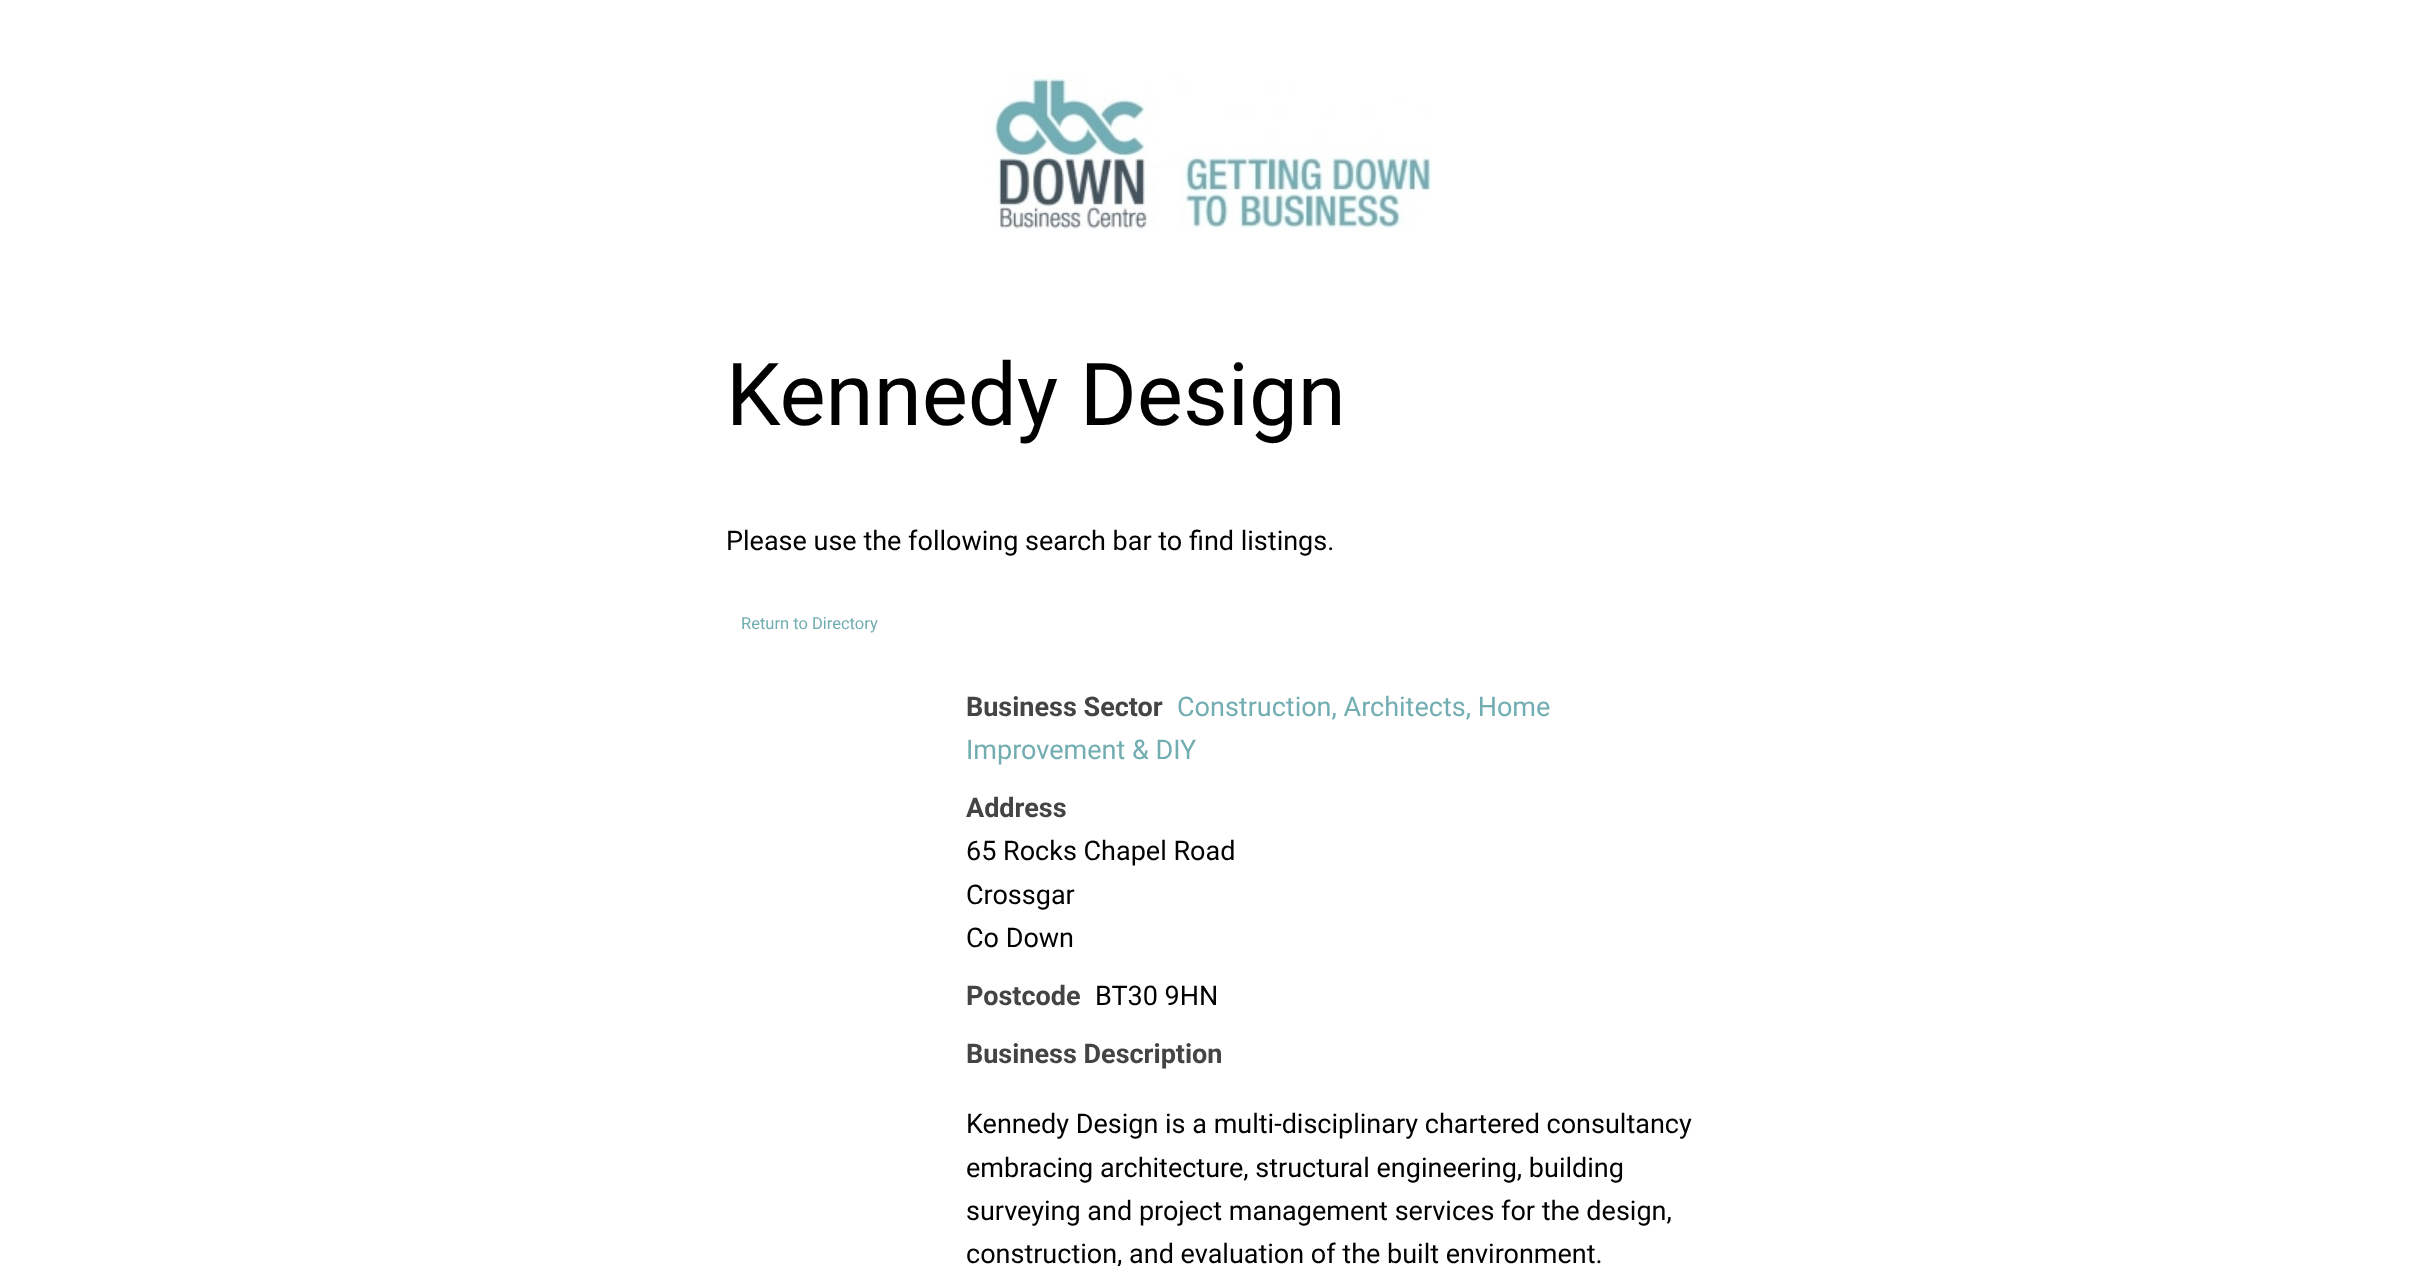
<svg xmlns="http://www.w3.org/2000/svg" width="2426" height="1266" viewBox="0 0 2426 1266">
  <rect width="100%" height="100%" fill="#ffffff"/>
  <image x="990" y="73" width="442" height="158" href="img1.png"/>
  <text x="726" y="425" font-family="Roboto" font-size="87" fill="#000000">Kennedy Design</text>
  <text x="726" y="550" font-family="Roboto" font-size="27" fill="#000000">Please use the following search bar to find listings.</text>
  <text x="741" y="629" font-family="Roboto" font-size="16.5" fill="#72adb1">Return to Directory</text>
  <text x="966" y="716" font-family="Roboto" font-size="27" font-weight="bold" fill="#444444">Business Sector</text>
  <text x="1177" y="716" font-family="Roboto" font-size="27" fill="#72adb1">Construction, Architects, Home</text>
  <text x="966" y="759" font-family="Roboto" font-size="27" fill="#72adb1">Improvement &amp; DIY</text>
  <text x="966" y="817" font-family="Roboto" font-size="27" font-weight="bold" fill="#444444">Address</text>
  <text x="966" y="860" font-family="Roboto" font-size="27" fill="#000000">65 Rocks Chapel Road</text>
  <text x="966" y="904" font-family="Roboto" font-size="27" fill="#000000">Crossgar</text>
  <text x="966" y="947" font-family="Roboto" font-size="27" fill="#000000">Co Down</text>
  <text x="966" y="1005" font-family="Roboto" font-size="27" font-weight="bold" fill="#444444">Postcode</text>
  <text x="1095" y="1005" font-family="Roboto" font-size="27" fill="#000000">BT30 9HN</text>
  <text x="966" y="1063" font-family="Roboto" font-size="27" font-weight="bold" fill="#444444">Business Description</text>
  <text x="966" y="1133" font-family="Roboto" font-size="27" fill="#000000">Kennedy Design is a multi-disciplinary chartered consultancy</text>
  <text x="966" y="1177" font-family="Roboto" font-size="27" fill="#000000">embracing architecture, structural engineering, building</text>
  <text x="966" y="1220" font-family="Roboto" font-size="27" fill="#000000">surveying and project management services for the design,</text>
  <text x="966" y="1263" font-family="Roboto" font-size="27" fill="#000000">construction, and evaluation of the built environment.</text>
</svg>
